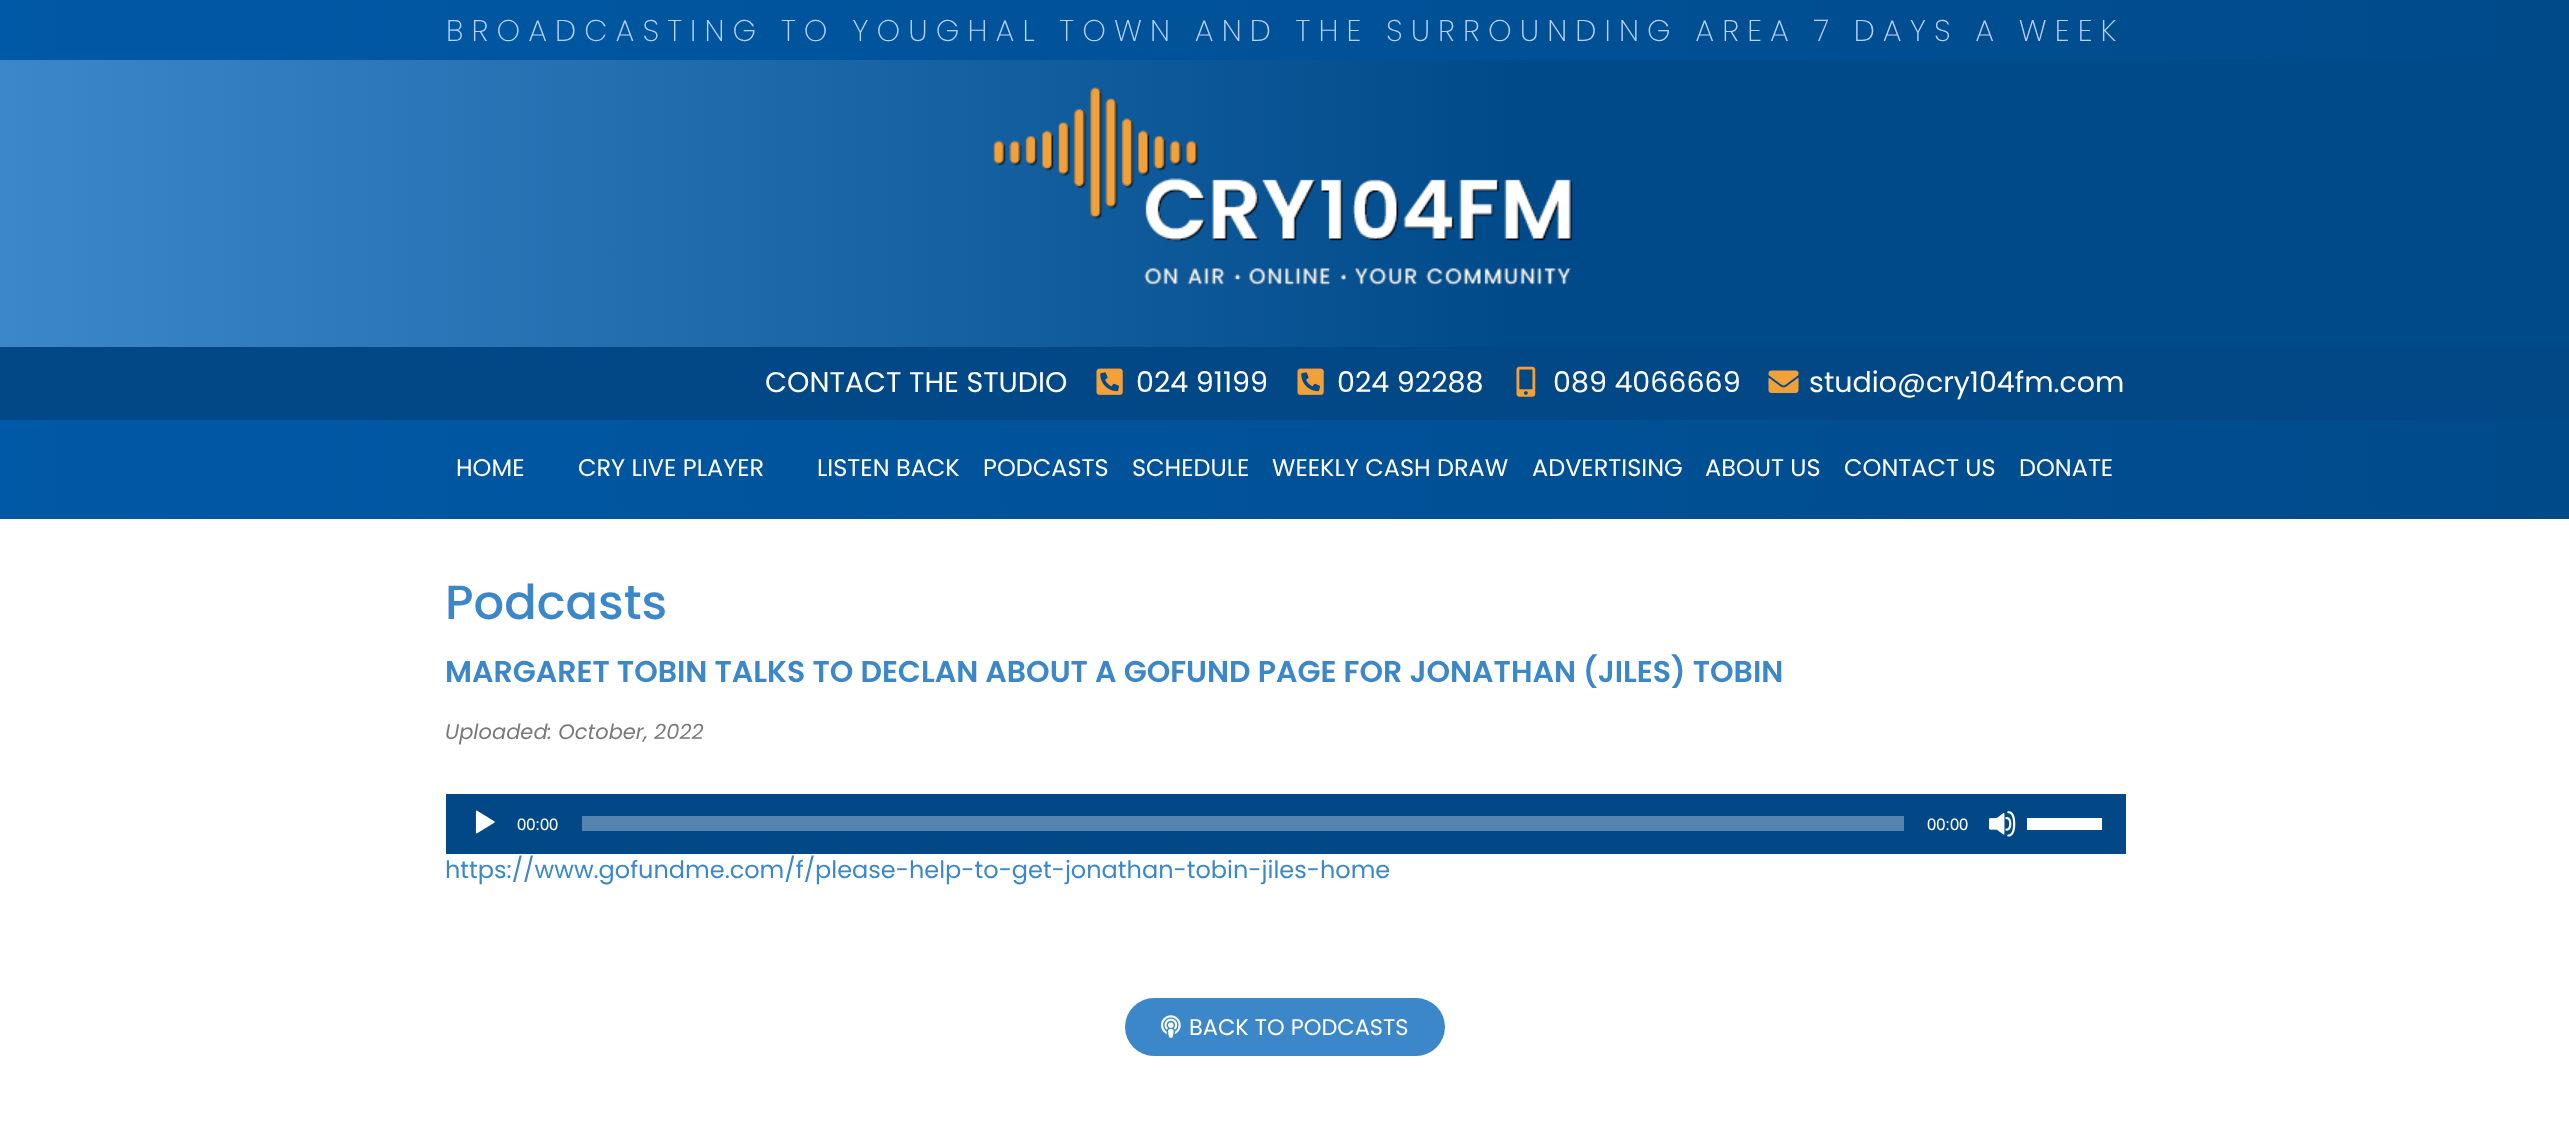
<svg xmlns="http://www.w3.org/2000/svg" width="2569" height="1125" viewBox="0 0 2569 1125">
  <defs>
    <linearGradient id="g1" gradientUnits="userSpaceOnUse" x1="0" y1="30" x2="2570" y2="30"><stop offset="0" stop-color="#0059a6"/><stop offset="1" stop-color="#004a8a"/></linearGradient>
    <linearGradient id="g2" gradientUnits="userSpaceOnUse" x1="0" y1="203" x2="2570" y2="203"><stop offset="0" stop-color="#3b87c9"/><stop offset="0.59" stop-color="#004a8a"/></linearGradient>
    <linearGradient id="g3" gradientUnits="userSpaceOnUse" x1="0" y1="470" x2="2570" y2="469"><stop offset="0" stop-color="#0059a6"/><stop offset="1" stop-color="#004a8a"/></linearGradient>
  </defs>
  <rect width="100%" height="100%" fill="#ffffff"/>
  <rect x="0" y="0" width="2569" height="60" fill="url(#g1)"/>
  <text x="446" y="41" font-family="Poppins" font-size="30" font-weight="200" letter-spacing="8.1" fill="#bad4ff">BROADCASTING TO YOUGHAL TOWN AND THE SURROUNDING AREA 7 DAYS A WEEK</text>
  <rect x="0" y="60" width="2569" height="287" fill="url(#g2)"/>
  <image x="993" y="86" width="580" height="200" href="img1.png"/>
  <rect x="0" y="347" width="2569" height="73" fill="#024886"/>
  <text x="765" y="392" font-family="Poppins" font-size="28.5" fill="#ffffff">CONTACT THE STUDIO</text>
  <image x="1096" y="368" width="27" height="27" href="img2.png"/>
  <text x="1136" y="392" font-family="Poppins" font-size="28.5" fill="#ffffff">024 91199</text>
  <image x="1297" y="368" width="27" height="27" href="img2.png"/>
  <text x="1337" y="392" font-family="Poppins" font-size="28.5" fill="#ffffff">024 92288</text>
  <image x="1516" y="366" width="20" height="31" href="img3.png"/>
  <text x="1553" y="392" font-family="Poppins" font-size="28.5" fill="#ffffff">089 4066669</text>
  <image x="1768" y="370" width="31" height="23" href="img4.png"/>
  <text x="1809" y="392" font-family="Poppins" font-size="28.5" fill="#ffffff">studio@cry104fm.com</text>
  <rect x="0" y="420" width="2569" height="99" fill="url(#g3)"/>
  <text x="456" y="476" font-family="Poppins" font-size="24" fill="#ffffff">HOME</text>
  <text x="578" y="476" font-family="Poppins" font-size="24" fill="#ffffff">CRY LIVE PLAYER</text>
  <text x="817" y="476" font-family="Poppins" font-size="24" fill="#ffffff">LISTEN BACK</text>
  <text x="983" y="476" font-family="Poppins" font-size="24" fill="#ffffff">PODCASTS</text>
  <text x="1132" y="476" font-family="Poppins" font-size="24" fill="#ffffff">SCHEDULE</text>
  <text x="1272" y="476" font-family="Poppins" font-size="24" fill="#ffffff">WEEKLY CASH DRAW</text>
  <text x="1532" y="476" font-family="Poppins" font-size="24" fill="#ffffff">ADVERTISING</text>
  <text x="1705" y="476" font-family="Poppins" font-size="24" fill="#ffffff">ABOUT US</text>
  <text x="1844" y="476" font-family="Poppins" font-size="24" fill="#ffffff">CONTACT US</text>
  <text x="2019" y="476" font-family="Poppins" font-size="24" fill="#ffffff">DONATE</text>
  <text x="445" y="619" font-family="Poppins" font-size="48" font-weight="500" fill="#3b87c9">Podcasts</text>
  <text x="445" y="682" font-family="Poppins" font-size="30" font-weight="600" fill="#3b87c9">MARGARET TOBIN TALKS TO DECLAN ABOUT A GOFUND PAGE FOR JONATHAN (JILES) TOBIN</text>
  <text x="445" y="739" font-family="Poppins" font-size="21" font-style="italic" fill="#7a7a7a">Uploaded: October, 2022</text>
  <rect x="446" y="794" width="1680" height="60" fill="#024886"/>
  <image x="475" y="810" width="20" height="24" href="img5.png"/>
  <text x="517" y="830" font-family="Liberation Sans" font-size="16.5" fill="#ffffff">00:00</text>
  <rect x="582" y="816" width="1322" height="15" fill="#5584ae"/>
  <text x="1927" y="830" font-family="Liberation Sans" font-size="16.5" fill="#ffffff">00:00</text>
  <image x="1989" y="811" width="27" height="26" href="img6.png"/>
  <rect x="2027" y="818" width="75" height="12" fill="#ffffff"/>
  <text x="445" y="878" font-family="Poppins" font-size="24" fill="#3b87c9">https://www.gofundme.com/f/please-help-to-get-jonathan-tobin-jiles-home</text>
  <rect x="1125" y="998" width="320" height="58" rx="29" fill="#3b87c9"/>
  <image x="1161" y="1015" width="20" height="23" href="img7.png"/>
  <text x="1189" y="1035" font-family="Poppins" font-size="22.5" fill="#ffffff">BACK TO PODCASTS</text>
</svg>
